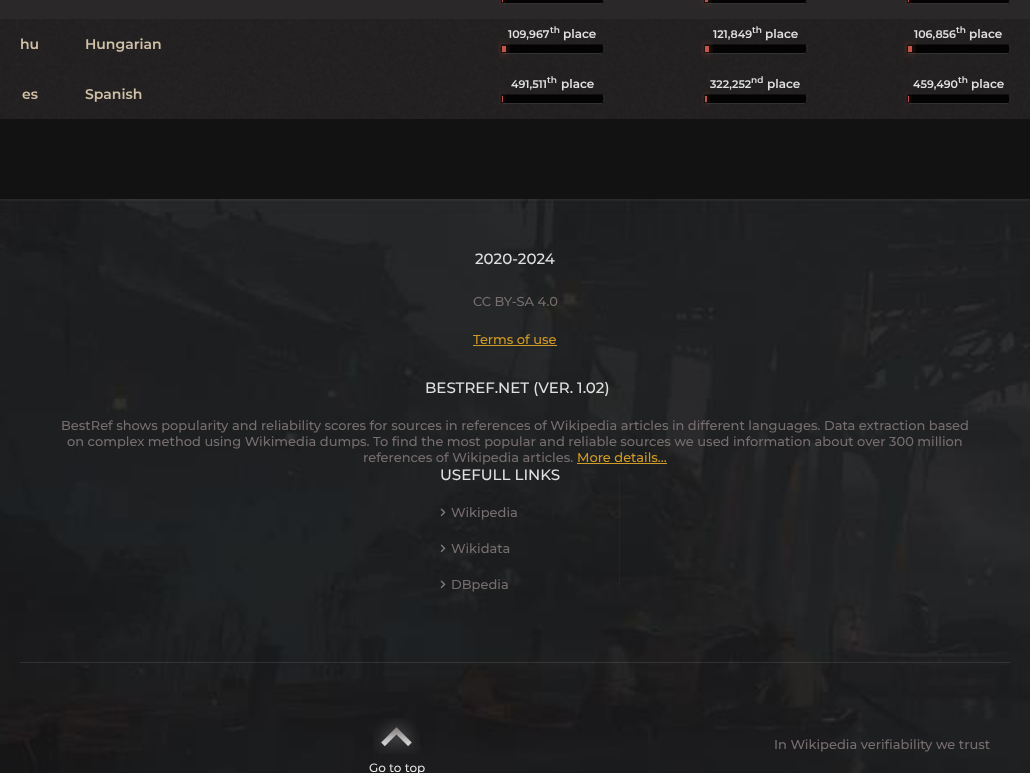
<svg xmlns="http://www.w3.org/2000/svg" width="1030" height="773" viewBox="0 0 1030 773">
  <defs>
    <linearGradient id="g1" gradientUnits="userSpaceOnUse" x1="397" y1="713" x2="397" y2="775"><stop offset="0" stop-color="#000000"/><stop offset="1" stop-color="#ffffff"/></linearGradient>
    <filter id="blur1" x="-50%" y="-200%" width="200%" height="500%"><feGaussianBlur stdDeviation="5"/></filter>
  </defs>
  <rect width="100%" height="100%" fill="#121212"/>
  <image x="0" y="19" width="1030" height="100" href="img1.png"/>
  <rect x="0" y="0" width="1030" height="19" fill="#2a2828"/>
  <rect x="501" y="-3" width="103" height="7" rx="3" fill="#030303"/>
  <path d="M603-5C604.5-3 604.5 3.5 601 3.5H504L502 3" fill="none" stroke="#333333"/>
  <path d="M502 3C500.5 1 500.5-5.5 504-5.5H601L603-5" fill="none" stroke="#111111"/>
  <rect x="501" y="-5" width="3" height="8" fill="#bc5050" fill-opacity="0.51" filter="url(#blur1)"/>
  <rect x="502" y="0" width="1" height="2" fill="#bc5050"/>
  <rect x="704" y="-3" width="103" height="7" rx="3" fill="#030303"/>
  <path d="M806-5C807.5-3 807.5 3.5 804 3.5H707L705 3" fill="none" stroke="#333333"/>
  <path d="M705 3C703.5 1 703.5-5.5 707-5.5H804L806-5" fill="none" stroke="#111111"/>
  <rect x="704" y="-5" width="5" height="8" fill="#c0544b" fill-opacity="0.52" filter="url(#blur1)"/>
  <rect x="705" y="0" width="3" height="2" fill="#c0544b"/>
  <rect x="907" y="-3" width="103" height="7" rx="3" fill="#030303"/>
  <path d="M1009-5C1010.5-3 1010.5 3.5 1007 3.5H910L908 3" fill="none" stroke="#333333"/>
  <path d="M908 3C906.5 1 906.5-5.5 910-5.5H1007L1009-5" fill="none" stroke="#111111"/>
  <rect x="907" y="-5" width="3" height="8" fill="#bc5050" fill-opacity="0.51" filter="url(#blur1)"/>
  <rect x="908" y="0" width="1" height="2" fill="#bc5050"/>
  <rect x="501" y="44" width="103" height="10" rx="3" fill="#030303"/>
  <path d="M603 45C604.5 47 604.5 53.5 601 53.5H504L502 53" fill="none" stroke="#333333"/>
  <path d="M502 53C500.5 51 500.5 44.5 504 44.5H601L603 45" fill="none" stroke="#111111"/>
  <rect x="501" y="45" width="6" height="8" fill="#c25649" fill-opacity="0.52" filter="url(#blur1)"/>
  <rect x="502" y="46" width="4" height="6" fill="#c25649"/>
  <text x="508" y="38" font-family="Montserrat" font-size="11" font-weight="600" fill="#e0e0e0">109,967</text>
  <text x="550" y="33" font-family="Montserrat" font-size="9" font-weight="600" fill="#e0e0e0">th</text>
  <text x="563" y="38" font-family="Montserrat" font-size="12" font-weight="600" fill="#e0e0e0">place</text>
  <rect x="704" y="44" width="103" height="10" rx="3" fill="#030303"/>
  <path d="M806 45C807.5 47 807.5 53.5 804 53.5H707L705 53" fill="none" stroke="#333333"/>
  <path d="M705 53C703.5 51 703.5 44.5 707 44.5H804L806 45" fill="none" stroke="#111111"/>
  <rect x="704" y="45" width="6" height="8" fill="#c25649" fill-opacity="0.52" filter="url(#blur1)"/>
  <rect x="705" y="46" width="4" height="6" fill="#c25649"/>
  <text x="713" y="38" font-family="Montserrat" font-size="11" font-weight="600" fill="#e0e0e0">121,849</text>
  <text x="752" y="33" font-family="Montserrat" font-size="9" font-weight="600" fill="#e0e0e0">th</text>
  <text x="765" y="38" font-family="Montserrat" font-size="12" font-weight="600" fill="#e0e0e0">place</text>
  <rect x="907" y="44" width="103" height="10" rx="3" fill="#030303"/>
  <path d="M1009 45C1010.5 47 1010.5 53.5 1007 53.5H910L908 53" fill="none" stroke="#333333"/>
  <path d="M908 53C906.5 51 906.5 44.5 910 44.5H1007L1009 45" fill="none" stroke="#111111"/>
  <rect x="907" y="45" width="6" height="8" fill="#c25649" fill-opacity="0.52" filter="url(#blur1)"/>
  <rect x="908" y="46" width="4" height="6" fill="#c25649"/>
  <text x="914" y="38" font-family="Montserrat" font-size="11" font-weight="600" fill="#e0e0e0">106,856</text>
  <text x="956" y="33" font-family="Montserrat" font-size="9" font-weight="600" fill="#e0e0e0">th</text>
  <text x="969" y="38" font-family="Montserrat" font-size="12" font-weight="600" fill="#e0e0e0">place</text>
  <text x="20" y="49" font-family="Montserrat" font-size="14" font-weight="600" fill="#d0c0a8">hu</text>
  <text x="85" y="49" font-family="Montserrat" font-size="14" font-weight="600" fill="#d0c0a8">Hungarian</text>
  <rect x="501" y="94" width="103" height="10" rx="3" fill="#030303"/>
  <path d="M603 95C604.5 97 604.5 103.5 601 103.5H504L502 103" fill="none" stroke="#333333"/>
  <path d="M502 103C500.5 101 500.5 94.5 504 94.5H601L603 95" fill="none" stroke="#111111"/>
  <rect x="501" y="95" width="3" height="8" fill="#bc5050" fill-opacity="0.51" filter="url(#blur1)"/>
  <rect x="502" y="96" width="1" height="6" fill="#bc5050"/>
  <text x="511" y="88" font-family="Montserrat" font-size="11" font-weight="600" fill="#e0e0e0">491,511</text>
  <text x="547" y="83" font-family="Montserrat" font-size="9" font-weight="600" fill="#e0e0e0">th</text>
  <text x="561" y="88" font-family="Montserrat" font-size="12" font-weight="600" fill="#e0e0e0">place</text>
  <rect x="704" y="94" width="103" height="10" rx="3" fill="#030303"/>
  <path d="M806 95C807.5 97 807.5 103.5 804 103.5H707L705 103" fill="none" stroke="#333333"/>
  <path d="M705 103C703.5 101 703.5 94.5 707 94.5H804L806 95" fill="none" stroke="#111111"/>
  <rect x="704" y="95" width="4" height="8" fill="#be524e" fill-opacity="0.51" filter="url(#blur1)"/>
  <rect x="705" y="96" width="2" height="6" fill="#be524e"/>
  <text x="710" y="88" font-family="Montserrat" font-size="11" font-weight="600" fill="#e0e0e0">322,252</text>
  <text x="751" y="83" font-family="Montserrat" font-size="9" font-weight="600" fill="#e0e0e0">nd</text>
  <text x="767" y="88" font-family="Montserrat" font-size="12" font-weight="600" fill="#e0e0e0">place</text>
  <rect x="907" y="94" width="103" height="10" rx="3" fill="#030303"/>
  <path d="M1009 95C1010.5 97 1010.5 103.5 1007 103.5H910L908 103" fill="none" stroke="#333333"/>
  <path d="M908 103C906.5 101 906.5 94.5 910 94.5H1007L1009 95" fill="none" stroke="#111111"/>
  <rect x="907" y="95" width="3" height="8" fill="#bc5050" fill-opacity="0.51" filter="url(#blur1)"/>
  <rect x="908" y="96" width="1" height="6" fill="#bc5050"/>
  <text x="913" y="88" font-family="Montserrat" font-size="11" font-weight="600" fill="#e0e0e0">459,490</text>
  <text x="958" y="83" font-family="Montserrat" font-size="9" font-weight="600" fill="#e0e0e0">th</text>
  <text x="971" y="88" font-family="Montserrat" font-size="12" font-weight="600" fill="#e0e0e0">place</text>
  <text x="22" y="99" font-family="Montserrat" font-size="14" font-weight="600" fill="#d0c0a8">es</text>
  <text x="85" y="99" font-family="Montserrat" font-size="14" font-weight="600" fill="#d0c0a8">Spanish</text>
  <image x="0" y="199" width="1030" height="574" href="img2.png"/>
  <rect x="20" y="662" width="990" height="1" fill="#f4f4f4" fill-opacity="0.1"/>
  <text x="475" y="264" font-family="Montserrat" font-size="15" font-weight="500" fill="#e0e0e0">2020-2024</text>
  <text x="473" y="306" font-family="Montserrat" font-size="13" font-weight="500" fill="#766d6d">CC BY-SA 4.0</text>
  <text x="473" y="344" font-family="Montserrat" font-size="13" font-weight="500" fill="#d09a26">Terms of use</text>
  <rect x="473" y="345" width="84" height="1" fill="#d09a26"/>
  <text x="425" y="393" font-family="Montserrat" font-size="15" font-weight="500" fill="#e0e0e0">BESTREF.NET (VER. 1.02)</text>
  <text x="61" y="430" font-family="Montserrat" font-size="13" font-weight="500" fill="#766d6d">BestRef shows popularity and reliability scores for sources in references of Wikipedia articles in different languages. Data extraction based</text>
  <text x="67" y="446" font-family="Montserrat" font-size="13" font-weight="500" fill="#766d6d">on complex method using Wikimedia dumps. To find the most popular and reliable sources we used information about over 300 million</text>
  <text x="363" y="462" font-family="Montserrat" font-size="13" font-weight="500" fill="#766d6d">references of Wikipedia articles.</text>
  <text x="577" y="462" font-family="Montserrat" font-size="13" font-weight="500" fill="#d09a26">More details...</text>
  <rect x="577" y="463" width="90" height="1" fill="#d09a26"/>
  <text x="440" y="480" font-family="Montserrat" font-size="15" font-weight="500" fill="#e0e0e0">USEFULL LINKS</text>
  <rect x="619" y="475" width="1" height="110" fill="#ffffff" fill-opacity="0.03"/>
  <image x="440" y="508" width="6" height="9" href="img3.png"/>
  <text x="451" y="517" font-family="Montserrat" font-size="13" font-weight="500" fill="#766d6d">Wikipedia</text>
  <image x="440" y="544" width="6" height="9" href="img4.png"/>
  <text x="451" y="553" font-family="Montserrat" font-size="13" font-weight="500" fill="#766d6d">Wikidata</text>
  <image x="440" y="580" width="6" height="9" href="img5.png"/>
  <text x="451" y="589" font-family="Montserrat" font-size="13" font-weight="500" fill="#766d6d">DBpedia</text>
  <text x="774" y="749" font-family="Montserrat" font-size="13" font-weight="500" fill="#766d6d">In Wikipedia verifiability we trust</text>
  <image x="373" y="718" width="47" height="36" href="img6.png"/>
  <text x="369" y="772" font-family="Montserrat" font-size="12" font-weight="500" fill="url(#g1)">Go to top</text>
</svg>
